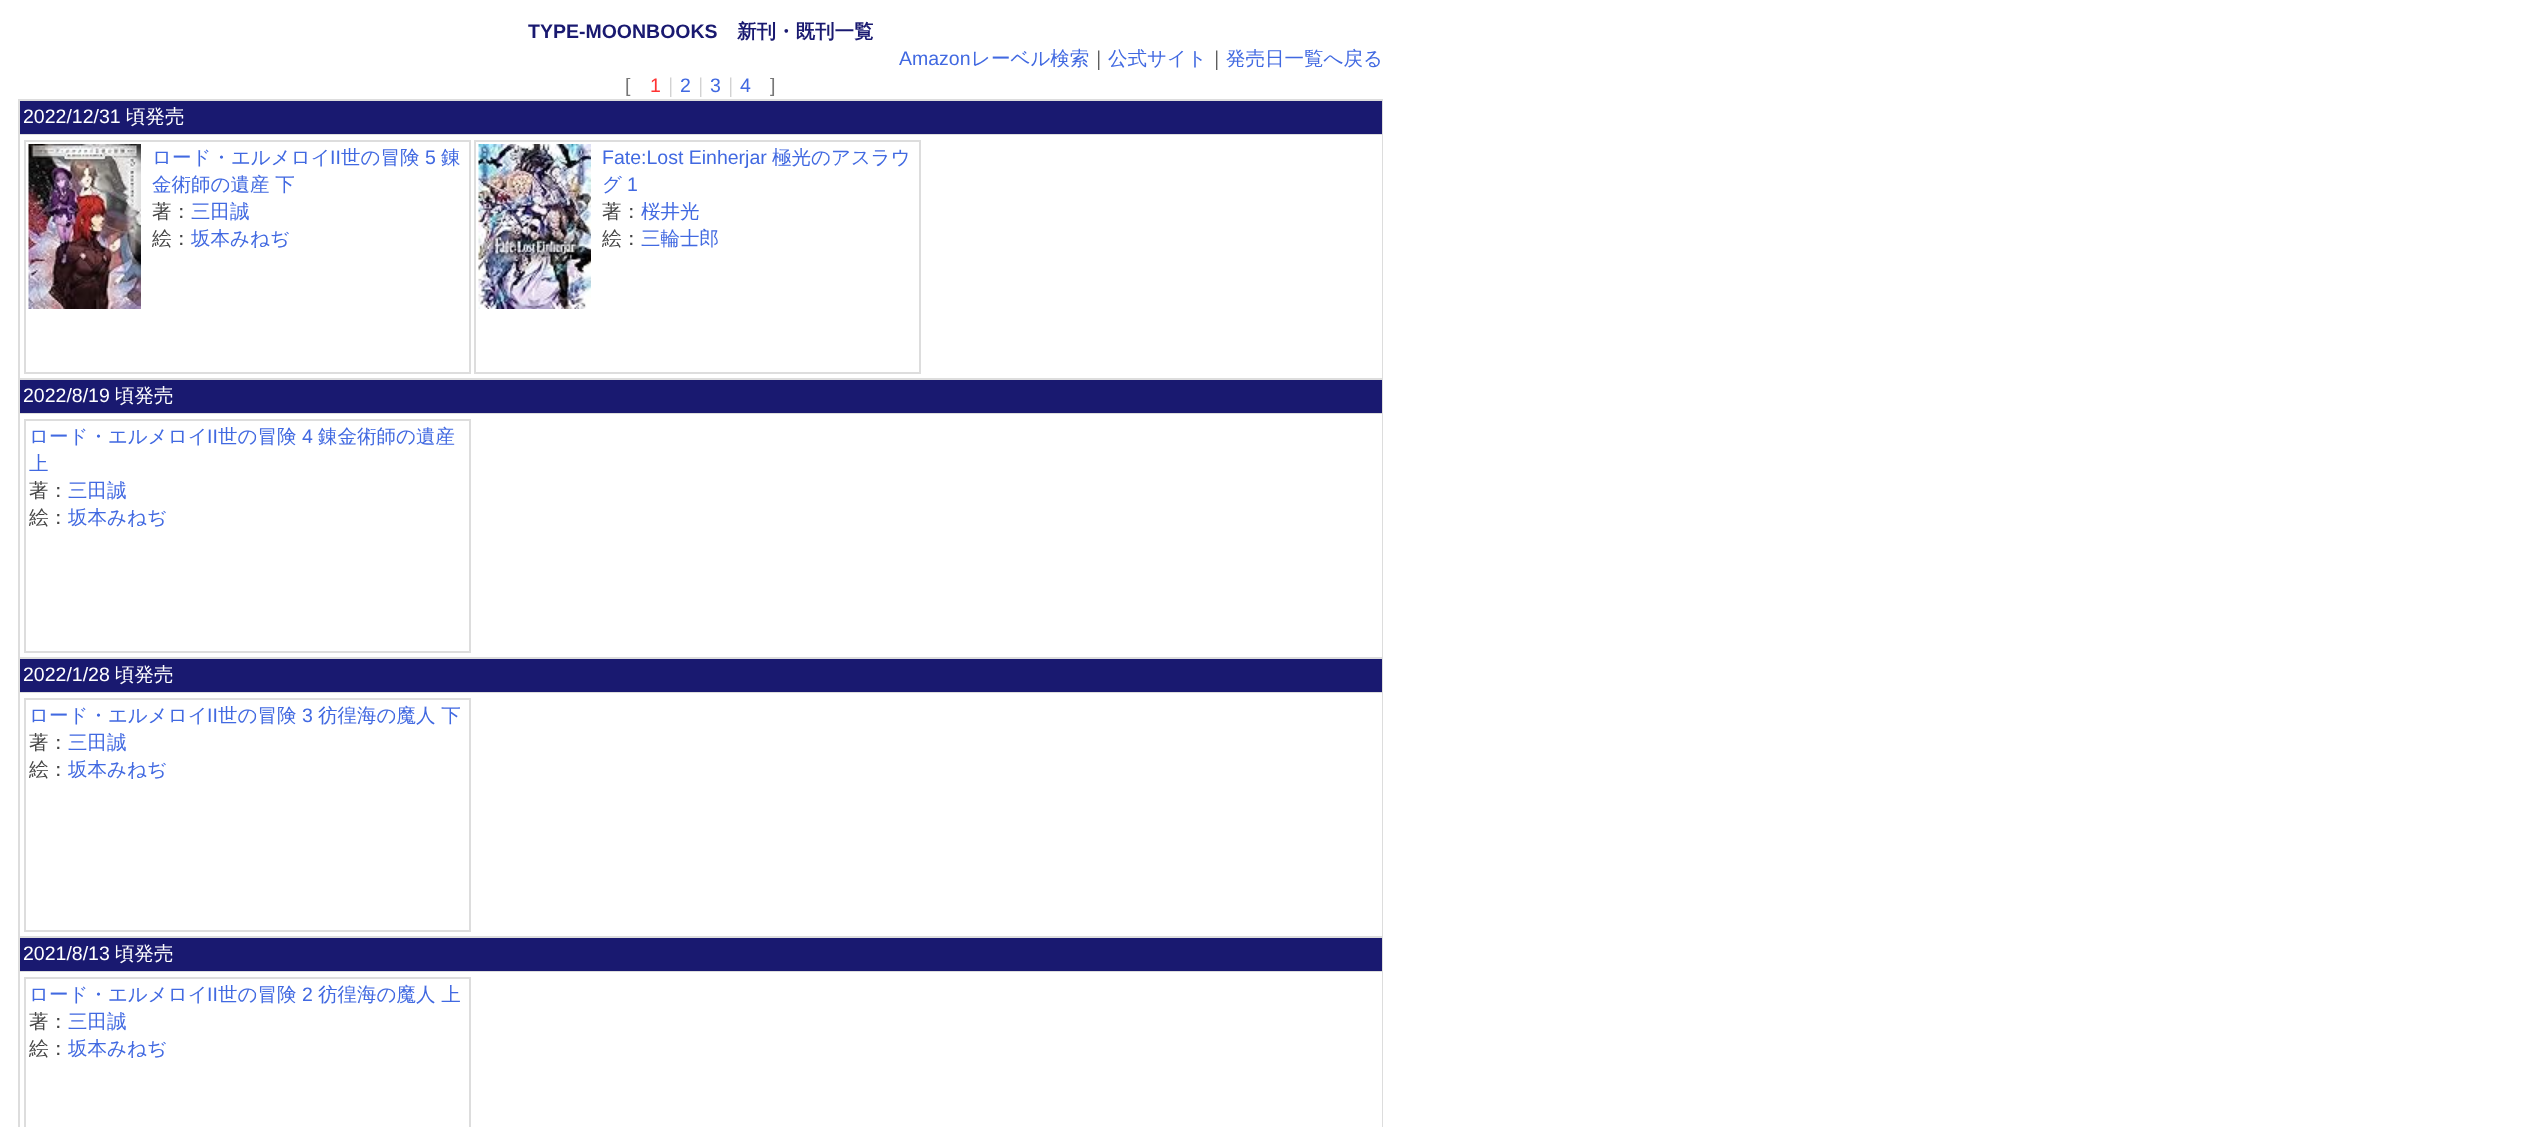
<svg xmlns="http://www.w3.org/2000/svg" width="2527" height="1127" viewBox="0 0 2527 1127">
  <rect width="100%" height="100%" fill="#ffffff"/>
  <text x="528" y="38" font-family="Liberation Sans" font-size="19.5" font-weight="bold" fill="#191970">TYPE-MOONBOOKS</text>
  <text x="737" y="38" font-family="WenQuanYi Zen Hei" font-size="19.5" font-weight="bold" fill="#191970">新刊・既刊一覧</text>
  <text x="899" y="65" font-family="Liberation Sans" font-size="19.5" fill="#4169e1">Amazon</text>
  <text x="971" y="65" font-family="WenQuanYi Zen Hei" font-size="19.5" font-weight="500" fill="#4169e1">レーベル検索</text>
  <text x="1089" y="65" font-family="WenQuanYi Zen Hei" font-size="19.5" font-weight="500" fill="#444444">｜</text>
  <text x="1108" y="65" font-family="WenQuanYi Zen Hei" font-size="19.5" font-weight="500" fill="#4169e1">公式サイト</text>
  <text x="1207" y="65" font-family="WenQuanYi Zen Hei" font-size="19.5" font-weight="500" fill="#444444">｜</text>
  <text x="1226" y="65" font-family="WenQuanYi Zen Hei" font-size="19.5" font-weight="500" fill="#4169e1">発売日一覧へ戻る</text>
  <text x="625" y="92" font-family="Liberation Sans" font-size="19.5" fill="#777777">[</text>
  <text x="650" y="92" font-family="Liberation Sans" font-size="19.5" fill="#ff3333">1</text>
  <text x="661" y="92" font-family="WenQuanYi Zen Hei" font-size="19.5" font-weight="500" fill="#cccccc">｜</text>
  <text x="680" y="92" font-family="Liberation Sans" font-size="19.5" fill="#4169e1">2</text>
  <text x="691" y="92" font-family="WenQuanYi Zen Hei" font-size="19.5" font-weight="500" fill="#cccccc">｜</text>
  <text x="710" y="92" font-family="Liberation Sans" font-size="19.5" fill="#4169e1">3</text>
  <text x="721" y="92" font-family="WenQuanYi Zen Hei" font-size="19.5" font-weight="500" fill="#cccccc">｜</text>
  <text x="740" y="92" font-family="Liberation Sans" font-size="19.5" fill="#4169e1">4</text>
  <text x="770" y="92" font-family="Liberation Sans" font-size="19.5" fill="#777777">]</text>
  <rect x="18" y="99" width="1365" height="1028" fill="#dddddd"/>
  <rect x="20" y="101" width="1362" height="33" fill="#191970"/>
  <text x="23" y="123" font-family="Liberation Sans" font-size="19.5" fill="#ffffff">2022/12/31</text>
  <text x="126" y="123" font-family="WenQuanYi Zen Hei" font-size="19.5" font-weight="500" fill="#ffffff">頃発売</text>
  <rect x="20" y="135" width="1362" height="243" fill="#ffffff"/>
  <rect x="25" y="141" width="445" height="232" fill="none" stroke="#dddddd" stroke-width="2"/>
  <image x="28" y="144" width="113" height="165" href="img1.png"/>
  <text x="152" y="164" font-family="WenQuanYi Zen Hei" font-size="19.5" font-weight="500" fill="#4169e1">ロード・エルメロイ</text>
  <text x="330" y="164" font-family="Liberation Sans" font-size="19.5" fill="#4169e1">II</text>
  <text x="341" y="164" font-family="WenQuanYi Zen Hei" font-size="19.5" font-weight="500" fill="#4169e1">世の冒険</text>
  <text x="425" y="164" font-family="Liberation Sans" font-size="19.5" fill="#4169e1">5</text>
  <text x="441" y="164" font-family="WenQuanYi Zen Hei" font-size="19.5" font-weight="500" fill="#4169e1">錬</text>
  <text x="152" y="191" font-family="WenQuanYi Zen Hei" font-size="19.5" font-weight="500" fill="#4169e1">金術師の遺産 下</text>
  <text x="152" y="218" font-family="WenQuanYi Zen Hei" font-size="19.5" font-weight="500" fill="#444444">著：</text>
  <text x="191" y="218" font-family="WenQuanYi Zen Hei" font-size="19.5" font-weight="500" fill="#4169e1">三田誠</text>
  <text x="152" y="245" font-family="WenQuanYi Zen Hei" font-size="19.5" font-weight="500" fill="#444444">絵：</text>
  <text x="191" y="245" font-family="WenQuanYi Zen Hei" font-size="19.5" font-weight="500" fill="#4169e1">坂本みねぢ</text>
  <rect x="475" y="141" width="445" height="232" fill="none" stroke="#dddddd" stroke-width="2"/>
  <image x="478" y="144" width="113" height="165" href="img2.png"/>
  <text x="602" y="164" font-family="Liberation Sans" font-size="19.5" fill="#4169e1">Fate:Lost Einherjar</text>
  <text x="772" y="164" font-family="WenQuanYi Zen Hei" font-size="19.5" font-weight="500" fill="#4169e1">極光のアスラウ</text>
  <text x="602" y="191" font-family="WenQuanYi Zen Hei" font-size="19.5" font-weight="500" fill="#4169e1">グ</text>
  <text x="627" y="191" font-family="Liberation Sans" font-size="19.5" fill="#4169e1">1</text>
  <text x="602" y="218" font-family="WenQuanYi Zen Hei" font-size="19.5" font-weight="500" fill="#444444">著：</text>
  <text x="641" y="218" font-family="WenQuanYi Zen Hei" font-size="19.5" font-weight="500" fill="#4169e1">桜井光</text>
  <text x="602" y="245" font-family="WenQuanYi Zen Hei" font-size="19.5" font-weight="500" fill="#444444">絵：</text>
  <text x="641" y="245" font-family="WenQuanYi Zen Hei" font-size="19.5" font-weight="500" fill="#4169e1">三輪士郎</text>
  <rect x="20" y="380" width="1362" height="33" fill="#191970"/>
  <text x="23" y="402" font-family="Liberation Sans" font-size="19.5" fill="#ffffff">2022/8/19</text>
  <text x="115" y="402" font-family="WenQuanYi Zen Hei" font-size="19.5" font-weight="500" fill="#ffffff">頃発売</text>
  <rect x="20" y="414" width="1362" height="243" fill="#ffffff"/>
  <rect x="25" y="420" width="445" height="232" fill="none" stroke="#dddddd" stroke-width="2"/>
  <text x="29" y="443" font-family="WenQuanYi Zen Hei" font-size="19.5" font-weight="500" fill="#4169e1">ロード・エルメロイ</text>
  <text x="207" y="443" font-family="Liberation Sans" font-size="19.5" fill="#4169e1">II</text>
  <text x="218" y="443" font-family="WenQuanYi Zen Hei" font-size="19.5" font-weight="500" fill="#4169e1">世の冒険</text>
  <text x="302" y="443" font-family="Liberation Sans" font-size="19.5" fill="#4169e1">4</text>
  <text x="318" y="443" font-family="WenQuanYi Zen Hei" font-size="19.5" font-weight="500" fill="#4169e1">錬金術師の遺産</text>
  <text x="29" y="470" font-family="WenQuanYi Zen Hei" font-size="19.5" font-weight="500" fill="#4169e1">上</text>
  <text x="29" y="497" font-family="WenQuanYi Zen Hei" font-size="19.5" font-weight="500" fill="#444444">著：</text>
  <text x="68" y="497" font-family="WenQuanYi Zen Hei" font-size="19.5" font-weight="500" fill="#4169e1">三田誠</text>
  <text x="29" y="524" font-family="WenQuanYi Zen Hei" font-size="19.5" font-weight="500" fill="#444444">絵：</text>
  <text x="68" y="524" font-family="WenQuanYi Zen Hei" font-size="19.5" font-weight="500" fill="#4169e1">坂本みねぢ</text>
  <rect x="20" y="659" width="1362" height="33" fill="#191970"/>
  <text x="23" y="681" font-family="Liberation Sans" font-size="19.5" fill="#ffffff">2022/1/28</text>
  <text x="115" y="681" font-family="WenQuanYi Zen Hei" font-size="19.5" font-weight="500" fill="#ffffff">頃発売</text>
  <rect x="20" y="693" width="1362" height="243" fill="#ffffff"/>
  <rect x="25" y="699" width="445" height="232" fill="none" stroke="#dddddd" stroke-width="2"/>
  <text x="29" y="722" font-family="WenQuanYi Zen Hei" font-size="19.5" font-weight="500" fill="#4169e1">ロード・エルメロイ</text>
  <text x="207" y="722" font-family="Liberation Sans" font-size="19.5" fill="#4169e1">II</text>
  <text x="218" y="722" font-family="WenQuanYi Zen Hei" font-size="19.5" font-weight="500" fill="#4169e1">世の冒険</text>
  <text x="302" y="722" font-family="Liberation Sans" font-size="19.5" fill="#4169e1">3</text>
  <text x="318" y="722" font-family="WenQuanYi Zen Hei" font-size="19.5" font-weight="500" fill="#4169e1">彷徨海の魔人 下</text>
  <text x="29" y="749" font-family="WenQuanYi Zen Hei" font-size="19.5" font-weight="500" fill="#444444">著：</text>
  <text x="68" y="749" font-family="WenQuanYi Zen Hei" font-size="19.5" font-weight="500" fill="#4169e1">三田誠</text>
  <text x="29" y="776" font-family="WenQuanYi Zen Hei" font-size="19.5" font-weight="500" fill="#444444">絵：</text>
  <text x="68" y="776" font-family="WenQuanYi Zen Hei" font-size="19.5" font-weight="500" fill="#4169e1">坂本みねぢ</text>
  <rect x="20" y="938" width="1362" height="33" fill="#191970"/>
  <text x="23" y="960" font-family="Liberation Sans" font-size="19.5" fill="#ffffff">2021/8/13</text>
  <text x="115" y="960" font-family="WenQuanYi Zen Hei" font-size="19.5" font-weight="500" fill="#ffffff">頃発売</text>
  <rect x="20" y="972" width="1362" height="155" fill="#ffffff"/>
  <rect x="25" y="978" width="445" height="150" fill="none" stroke="#dddddd" stroke-width="2"/>
  <text x="29" y="1001" font-family="WenQuanYi Zen Hei" font-size="19.5" font-weight="500" fill="#4169e1">ロード・エルメロイ</text>
  <text x="207" y="1001" font-family="Liberation Sans" font-size="19.5" fill="#4169e1">II</text>
  <text x="218" y="1001" font-family="WenQuanYi Zen Hei" font-size="19.5" font-weight="500" fill="#4169e1">世の冒険</text>
  <text x="302" y="1001" font-family="Liberation Sans" font-size="19.5" fill="#4169e1">2</text>
  <text x="318" y="1001" font-family="WenQuanYi Zen Hei" font-size="19.5" font-weight="500" fill="#4169e1">彷徨海の魔人 上</text>
  <text x="29" y="1028" font-family="WenQuanYi Zen Hei" font-size="19.5" font-weight="500" fill="#444444">著：</text>
  <text x="68" y="1028" font-family="WenQuanYi Zen Hei" font-size="19.5" font-weight="500" fill="#4169e1">三田誠</text>
  <text x="29" y="1055" font-family="WenQuanYi Zen Hei" font-size="19.5" font-weight="500" fill="#444444">絵：</text>
  <text x="68" y="1055" font-family="WenQuanYi Zen Hei" font-size="19.5" font-weight="500" fill="#4169e1">坂本みねぢ</text>
</svg>
